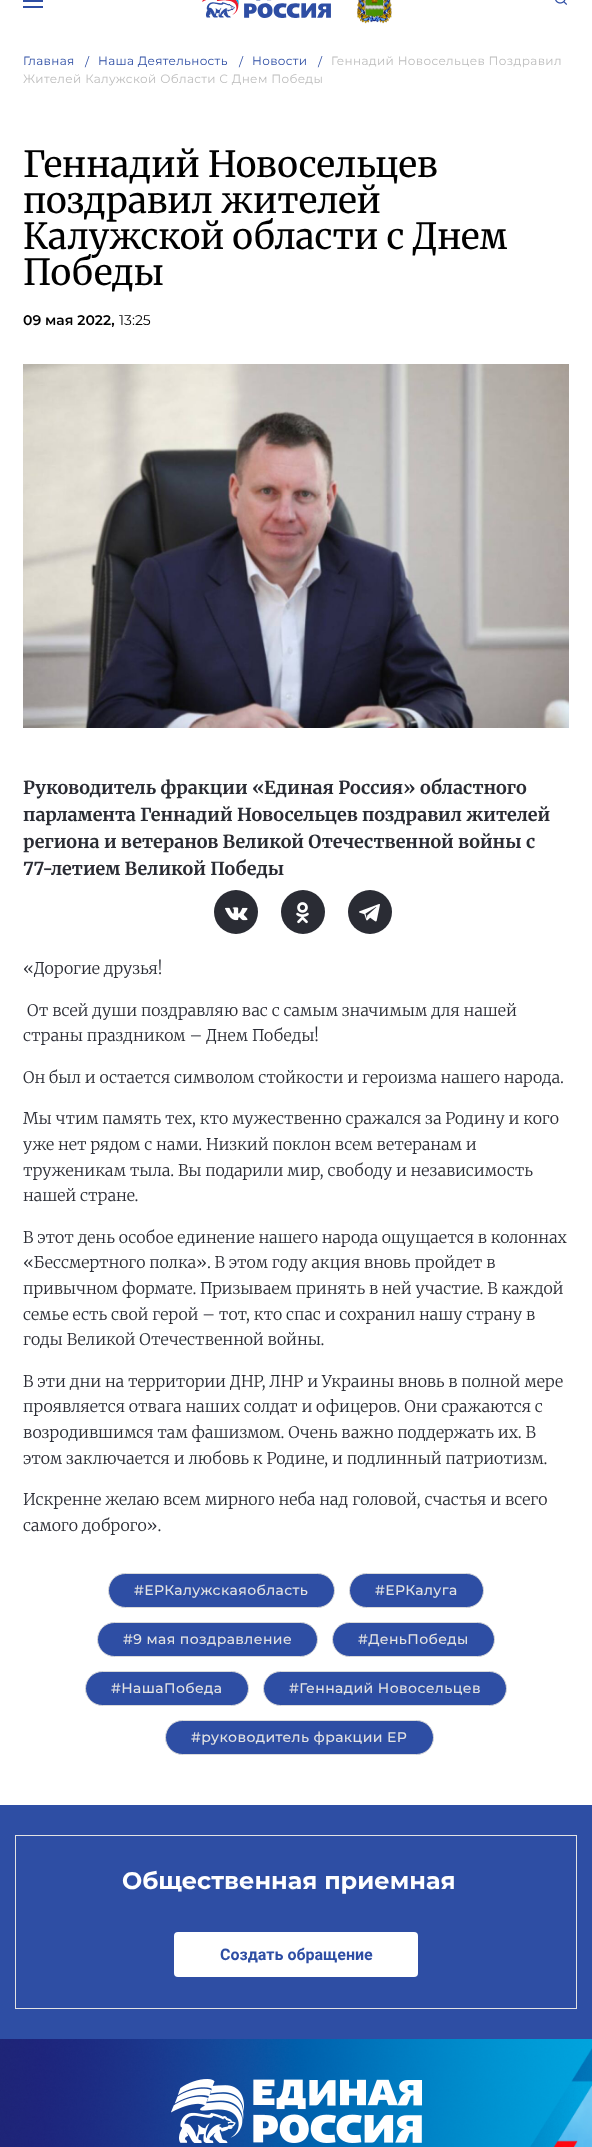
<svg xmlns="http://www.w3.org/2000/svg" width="592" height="2147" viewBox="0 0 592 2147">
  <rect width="100%" height="100%" fill="#ffffff"/>
  <rect x="23" y="0" width="20" height="2" fill="#2e4ea4"/>
  <rect x="23" y="6" width="20" height="2" fill="#2e4ea4"/>
  <image x="202" y="0" width="129" height="18" href="img1.png"/>
  <image x="357" y="0" width="35" height="24" href="img2.png"/>
  <image x="555" y="0" width="12" height="5" href="img3.png"/>
  <text x="23" y="65" font-family="Montserrat" font-size="12" letter-spacing="0.35" fill="#2e4ea4">Главная</text>
  <text x="85" y="66" font-family="Montserrat" font-size="12" letter-spacing="0.35" fill="#2e4ea4">/</text>
  <text x="98" y="65" font-family="Montserrat" font-size="12" letter-spacing="0.35" fill="#2e4ea4">Наша Деятельность</text>
  <text x="239" y="66" font-family="Montserrat" font-size="12" letter-spacing="0.35" fill="#2e4ea4">/</text>
  <text x="252" y="65" font-family="Montserrat" font-size="12" letter-spacing="0.35" fill="#2e4ea4">Новости</text>
  <text x="318" y="66" font-family="Montserrat" font-size="12" letter-spacing="0.35" fill="#2e4ea4">/</text>
  <text x="331" y="65" font-family="Montserrat" font-size="12" letter-spacing="0.35" fill="#bdbdbd">Геннадий Новосельцев Поздравил</text>
  <text x="23" y="83" font-family="Montserrat" font-size="12" letter-spacing="0.35" fill="#bdbdbd">Жителей Калужской Области С Днем Победы</text>
  <text x="23" y="177" font-family="Merriweather" font-size="36" fill="#000000">Геннадий Новосельцев</text>
  <text x="23" y="213" font-family="Merriweather" font-size="36" fill="#000000">поздравил жителей</text>
  <text x="23" y="249" font-family="Merriweather" font-size="36" fill="#000000">Калужской области с Днем</text>
  <text x="23" y="285" font-family="Merriweather" font-size="36" fill="#000000">Победы</text>
  <text x="23" y="325" font-family="Montserrat" font-size="14" font-weight="600" fill="#000000">09 мая 2022,</text>
  <text x="119" y="325" font-family="Montserrat" font-size="14" fill="#000000">13:25</text>
  <image x="23" y="364" width="546" height="364" href="img4.png"/>
  <text x="23" y="794" font-family="Merriweather" font-size="18" font-weight="bold" fill="#2a2c34">Руководитель фракции «Единая Россия» областного</text>
  <text x="23" y="821" font-family="Merriweather" font-size="18" font-weight="bold" fill="#2a2c34">парламента Геннадий Новосельцев поздравил жителей</text>
  <text x="23" y="848" font-family="Merriweather" font-size="18" font-weight="bold" fill="#2a2c34">региона и ветеранов Великой Отечественной войны с</text>
  <text x="23" y="875" font-family="Merriweather" font-size="18" font-weight="bold" fill="#2a2c34">77-летием Великой Победы</text>
  <circle cx="236" cy="912" r="22" fill="#2a2c34"/>
  <image x="225" y="907" width="23" height="14" href="img5.png"/>
  <circle cx="303" cy="912" r="22" fill="#2a2c34"/>
  <image x="296" y="902" width="13" height="22" href="img6.png"/>
  <circle cx="370" cy="912" r="22" fill="#2a2c34"/>
  <image x="359" y="904" width="21" height="18" href="img7.png"/>
  <text x="23" y="974" font-family="Merriweather" font-size="16" font-weight="300" fill="#2a2c34">«Дорогие друзья!</text>
  <text x="27" y="1016" font-family="Merriweather" font-size="16" font-weight="300" fill="#2a2c34">От всей души поздравляю вас с самым значимым для нашей</text>
  <text x="23" y="1041" font-family="Merriweather" font-size="16" font-weight="300" fill="#2a2c34">страны праздником – Днем Победы!</text>
  <text x="23" y="1083" font-family="Merriweather" font-size="16" font-weight="300" fill="#2a2c34">Он был и остается символом стойкости и героизма нашего народа.</text>
  <text x="23" y="1124" font-family="Merriweather" font-size="16" font-weight="300" fill="#2a2c34">Мы чтим память тех, кто мужественно сражался за Родину и кого</text>
  <text x="23" y="1150" font-family="Merriweather" font-size="16" font-weight="300" fill="#2a2c34">уже нет рядом с нами. Низкий поклон всем ветеранам и</text>
  <text x="23" y="1176" font-family="Merriweather" font-size="16" font-weight="300" fill="#2a2c34">труженикам тыла. Вы подарили мир, свободу и независимость</text>
  <text x="23" y="1201" font-family="Merriweather" font-size="16" font-weight="300" fill="#2a2c34">нашей стране.</text>
  <text x="23" y="1243" font-family="Merriweather" font-size="16" font-weight="300" fill="#2a2c34">В этот день особое единение нашего народа ощущается в колоннах</text>
  <text x="23" y="1268" font-family="Merriweather" font-size="16" font-weight="300" fill="#2a2c34">«Бессмертного полка». В этом году акция вновь пройдет в</text>
  <text x="23" y="1294" font-family="Merriweather" font-size="16" font-weight="300" fill="#2a2c34">привычном формате. Призываем принять в ней участие. В каждой</text>
  <text x="23" y="1320" font-family="Merriweather" font-size="16" font-weight="300" fill="#2a2c34">семье есть свой герой – тот, кто спас и сохранил нашу страну в</text>
  <text x="23" y="1345" font-family="Merriweather" font-size="16" font-weight="300" fill="#2a2c34">годы Великой Отечественной войны.</text>
  <text x="23" y="1387" font-family="Merriweather" font-size="16" font-weight="300" fill="#2a2c34">В эти дни на территории ДНР, ЛНР и Украины вновь в полной мере</text>
  <text x="23" y="1412" font-family="Merriweather" font-size="16" font-weight="300" fill="#2a2c34">проявляется отвага наших солдат и офицеров. Они сражаются с</text>
  <text x="23" y="1438" font-family="Merriweather" font-size="16" font-weight="300" fill="#2a2c34">возродившимся там фашизмом. Очень важно поддержать их. В</text>
  <text x="23" y="1464" font-family="Merriweather" font-size="16" font-weight="300" fill="#2a2c34">этом заключается и любовь к Родине, и подлинный патриотизм.</text>
  <text x="23" y="1505" font-family="Merriweather" font-size="16" font-weight="300" fill="#2a2c34">Искренне желаю всем мирного неба над головой, счастья и всего</text>
  <text x="23" y="1531" font-family="Merriweather" font-size="16" font-weight="300" fill="#2a2c34">самого доброго».</text>
  <rect x="108.5" y="1573.5" width="226" height="34" rx="17" fill="#2e4ea4" stroke="#dadada"/>
  <text x="134" y="1595" font-family="Montserrat" font-size="14" font-weight="500" letter-spacing="0.4" fill="#e3e3e3">#ЕРКалужскаяобласть</text>
  <rect x="349.5" y="1573.5" width="134" height="34" rx="17" fill="#2e4ea4" stroke="#dadada"/>
  <text x="375" y="1595" font-family="Montserrat" font-size="14" font-weight="500" letter-spacing="0.4" fill="#e3e3e3">#ЕРКалуга</text>
  <rect x="97.5" y="1622.5" width="220" height="34" rx="17" fill="#2e4ea4" stroke="#dadada"/>
  <text x="123" y="1644" font-family="Montserrat" font-size="14" font-weight="500" letter-spacing="0.4" fill="#e3e3e3">#9 мая поздравление</text>
  <rect x="332.5" y="1622.5" width="162" height="34" rx="17" fill="#2e4ea4" stroke="#dadada"/>
  <text x="358" y="1644" font-family="Montserrat" font-size="14" font-weight="500" letter-spacing="0.4" fill="#e3e3e3">#ДеньПобеды</text>
  <rect x="85.5" y="1671.5" width="163" height="34" rx="17" fill="#2e4ea4" stroke="#dadada"/>
  <text x="111" y="1693" font-family="Montserrat" font-size="14" font-weight="500" letter-spacing="0.4" fill="#e3e3e3">#НашаПобеда</text>
  <rect x="263.5" y="1671.5" width="243" height="34" rx="17" fill="#2e4ea4" stroke="#dadada"/>
  <text x="289" y="1693" font-family="Montserrat" font-size="14" font-weight="500" letter-spacing="0.4" fill="#e3e3e3">#Геннадий Новосельцев</text>
  <rect x="165.5" y="1720.5" width="268" height="34" rx="17" fill="#2e4ea4" stroke="#dadada"/>
  <text x="191" y="1742" font-family="Montserrat" font-size="14" font-weight="500" letter-spacing="0.4" fill="#e3e3e3">#руководитель фракции ЕР</text>
  <rect x="0" y="1805" width="592" height="234" fill="#2e4ea4"/>
  <rect x="15.5" y="1835.5" width="561" height="173" fill="none" stroke="#e3e3e3"/>
  <text x="122" y="1889" font-family="Montserrat" font-size="24" font-weight="bold" fill="#ffffff">Общественная приемная</text>
  <rect x="174" y="1932" width="244" height="45" rx="4" fill="#ffffff"/>
  <text x="220" y="1960" font-family="Roboto" font-size="16" font-weight="bold" fill="#2e4ea4">Создать обращение</text>
  <image x="0" y="2039" width="592" height="108" href="img8.png"/>
  <image x="171" y="2079" width="251" height="64" href="img9.png"/>
</svg>
